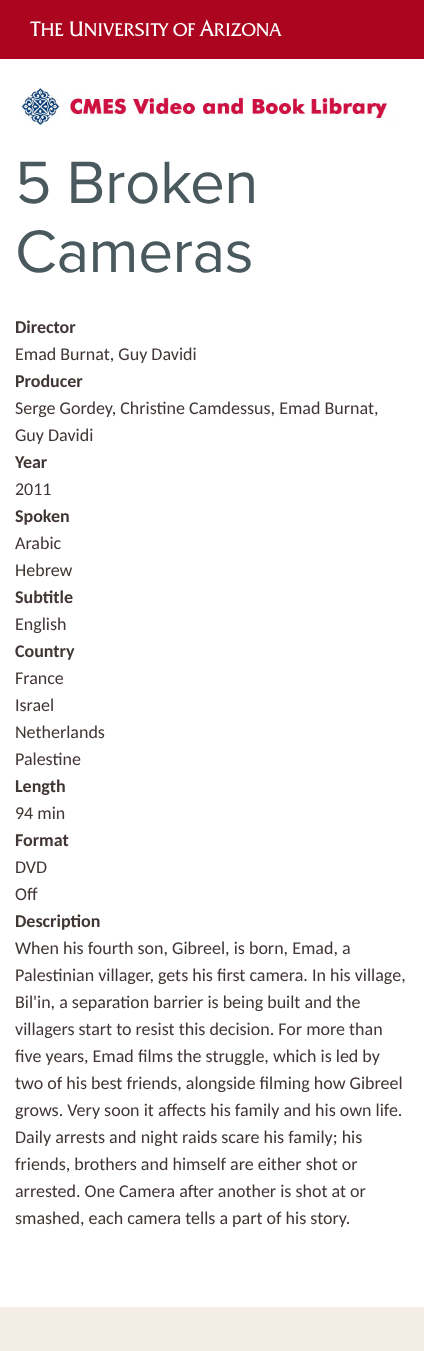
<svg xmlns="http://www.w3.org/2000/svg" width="424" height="1351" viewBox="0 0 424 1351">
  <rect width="100%" height="100%" fill="#ffffff"/>
  <rect x="0" y="0" width="424" height="59" fill="#ab0520"/>
  <image x="30" y="19" width="252" height="18" href="img1.png"/>
  <image x="20" y="88" width="376" height="37" href="img2.png"/>
  <text x="15" y="203" font-family="Proxima Nova" font-size="62" letter-spacing="-0.5" fill="#49595e">5 Broken</text>
  <text x="15" y="272" font-family="Proxima Nova" font-size="62" letter-spacing="-0.5" fill="#49595e">Cameras</text>
  <text x="15" y="333" font-family="Carlito" font-size="18" font-weight="bold" fill="#403635">Director</text>
  <text x="15" y="360" font-family="Carlito" font-size="18" fill="#403635">Emad Burnat, Guy Davidi</text>
  <text x="15" y="387" font-family="Carlito" font-size="18" font-weight="bold" fill="#403635">Producer</text>
  <text x="15" y="414" font-family="Carlito" font-size="18" fill="#403635">Serge Gordey, Christine Camdessus, Emad Burnat,</text>
  <text x="15" y="441" font-family="Carlito" font-size="18" fill="#403635">Guy Davidi</text>
  <text x="15" y="468" font-family="Carlito" font-size="18" font-weight="bold" fill="#403635">Year</text>
  <text x="15" y="495" font-family="Carlito" font-size="18" fill="#403635">2011</text>
  <text x="15" y="522" font-family="Carlito" font-size="18" font-weight="bold" fill="#403635">Spoken</text>
  <text x="15" y="549" font-family="Carlito" font-size="18" fill="#403635">Arabic</text>
  <text x="15" y="576" font-family="Carlito" font-size="18" fill="#403635">Hebrew</text>
  <text x="15" y="603" font-family="Carlito" font-size="18" font-weight="bold" fill="#403635">Subtitle</text>
  <text x="15" y="630" font-family="Carlito" font-size="18" fill="#403635">English</text>
  <text x="15" y="657" font-family="Carlito" font-size="18" font-weight="bold" fill="#403635">Country</text>
  <text x="15" y="684" font-family="Carlito" font-size="18" fill="#403635">France</text>
  <text x="15" y="711" font-family="Carlito" font-size="18" fill="#403635">Israel</text>
  <text x="15" y="738" font-family="Carlito" font-size="18" fill="#403635">Netherlands</text>
  <text x="15" y="765" font-family="Carlito" font-size="18" fill="#403635">Palestine</text>
  <text x="15" y="792" font-family="Carlito" font-size="18" font-weight="bold" fill="#403635">Length</text>
  <text x="15" y="819" font-family="Carlito" font-size="18" fill="#403635">94 min</text>
  <text x="15" y="846" font-family="Carlito" font-size="18" font-weight="bold" fill="#403635">Format</text>
  <text x="15" y="873" font-family="Carlito" font-size="18" fill="#403635">DVD</text>
  <text x="15" y="900" font-family="Carlito" font-size="18" fill="#403635">Off</text>
  <text x="15" y="927" font-family="Carlito" font-size="18" font-weight="bold" fill="#403635">Description</text>
  <text x="15" y="954" font-family="Carlito" font-size="18" fill="#403635">When his fourth son, Gibreel, is born, Emad, a</text>
  <text x="15" y="981" font-family="Carlito" font-size="18" fill="#403635">Palestinian villager, gets his first camera. In his village,</text>
  <text x="15" y="1008" font-family="Carlito" font-size="18" fill="#403635">Bil'in, a separation barrier is being built and the</text>
  <text x="15" y="1035" font-family="Carlito" font-size="18" fill="#403635">villagers start to resist this decision. For more than</text>
  <text x="15" y="1062" font-family="Carlito" font-size="18" fill="#403635">five years, Emad films the struggle, which is led by</text>
  <text x="15" y="1089" font-family="Carlito" font-size="18" fill="#403635">two of his best friends, alongside filming how Gibreel</text>
  <text x="15" y="1116" font-family="Carlito" font-size="18" fill="#403635">grows. Very soon it affects his family and his own life.</text>
  <text x="15" y="1143" font-family="Carlito" font-size="18" fill="#403635">Daily arrests and night raids scare his family; his</text>
  <text x="15" y="1170" font-family="Carlito" font-size="18" fill="#403635">friends, brothers and himself are either shot or</text>
  <text x="15" y="1197" font-family="Carlito" font-size="18" fill="#403635">arrested. One Camera after another is shot at or</text>
  <text x="15" y="1224" font-family="Carlito" font-size="18" fill="#403635">smashed, each camera tells a part of his story.</text>
  <rect x="0" y="1307" width="424" height="44" fill="#f4ede5"/>
</svg>
